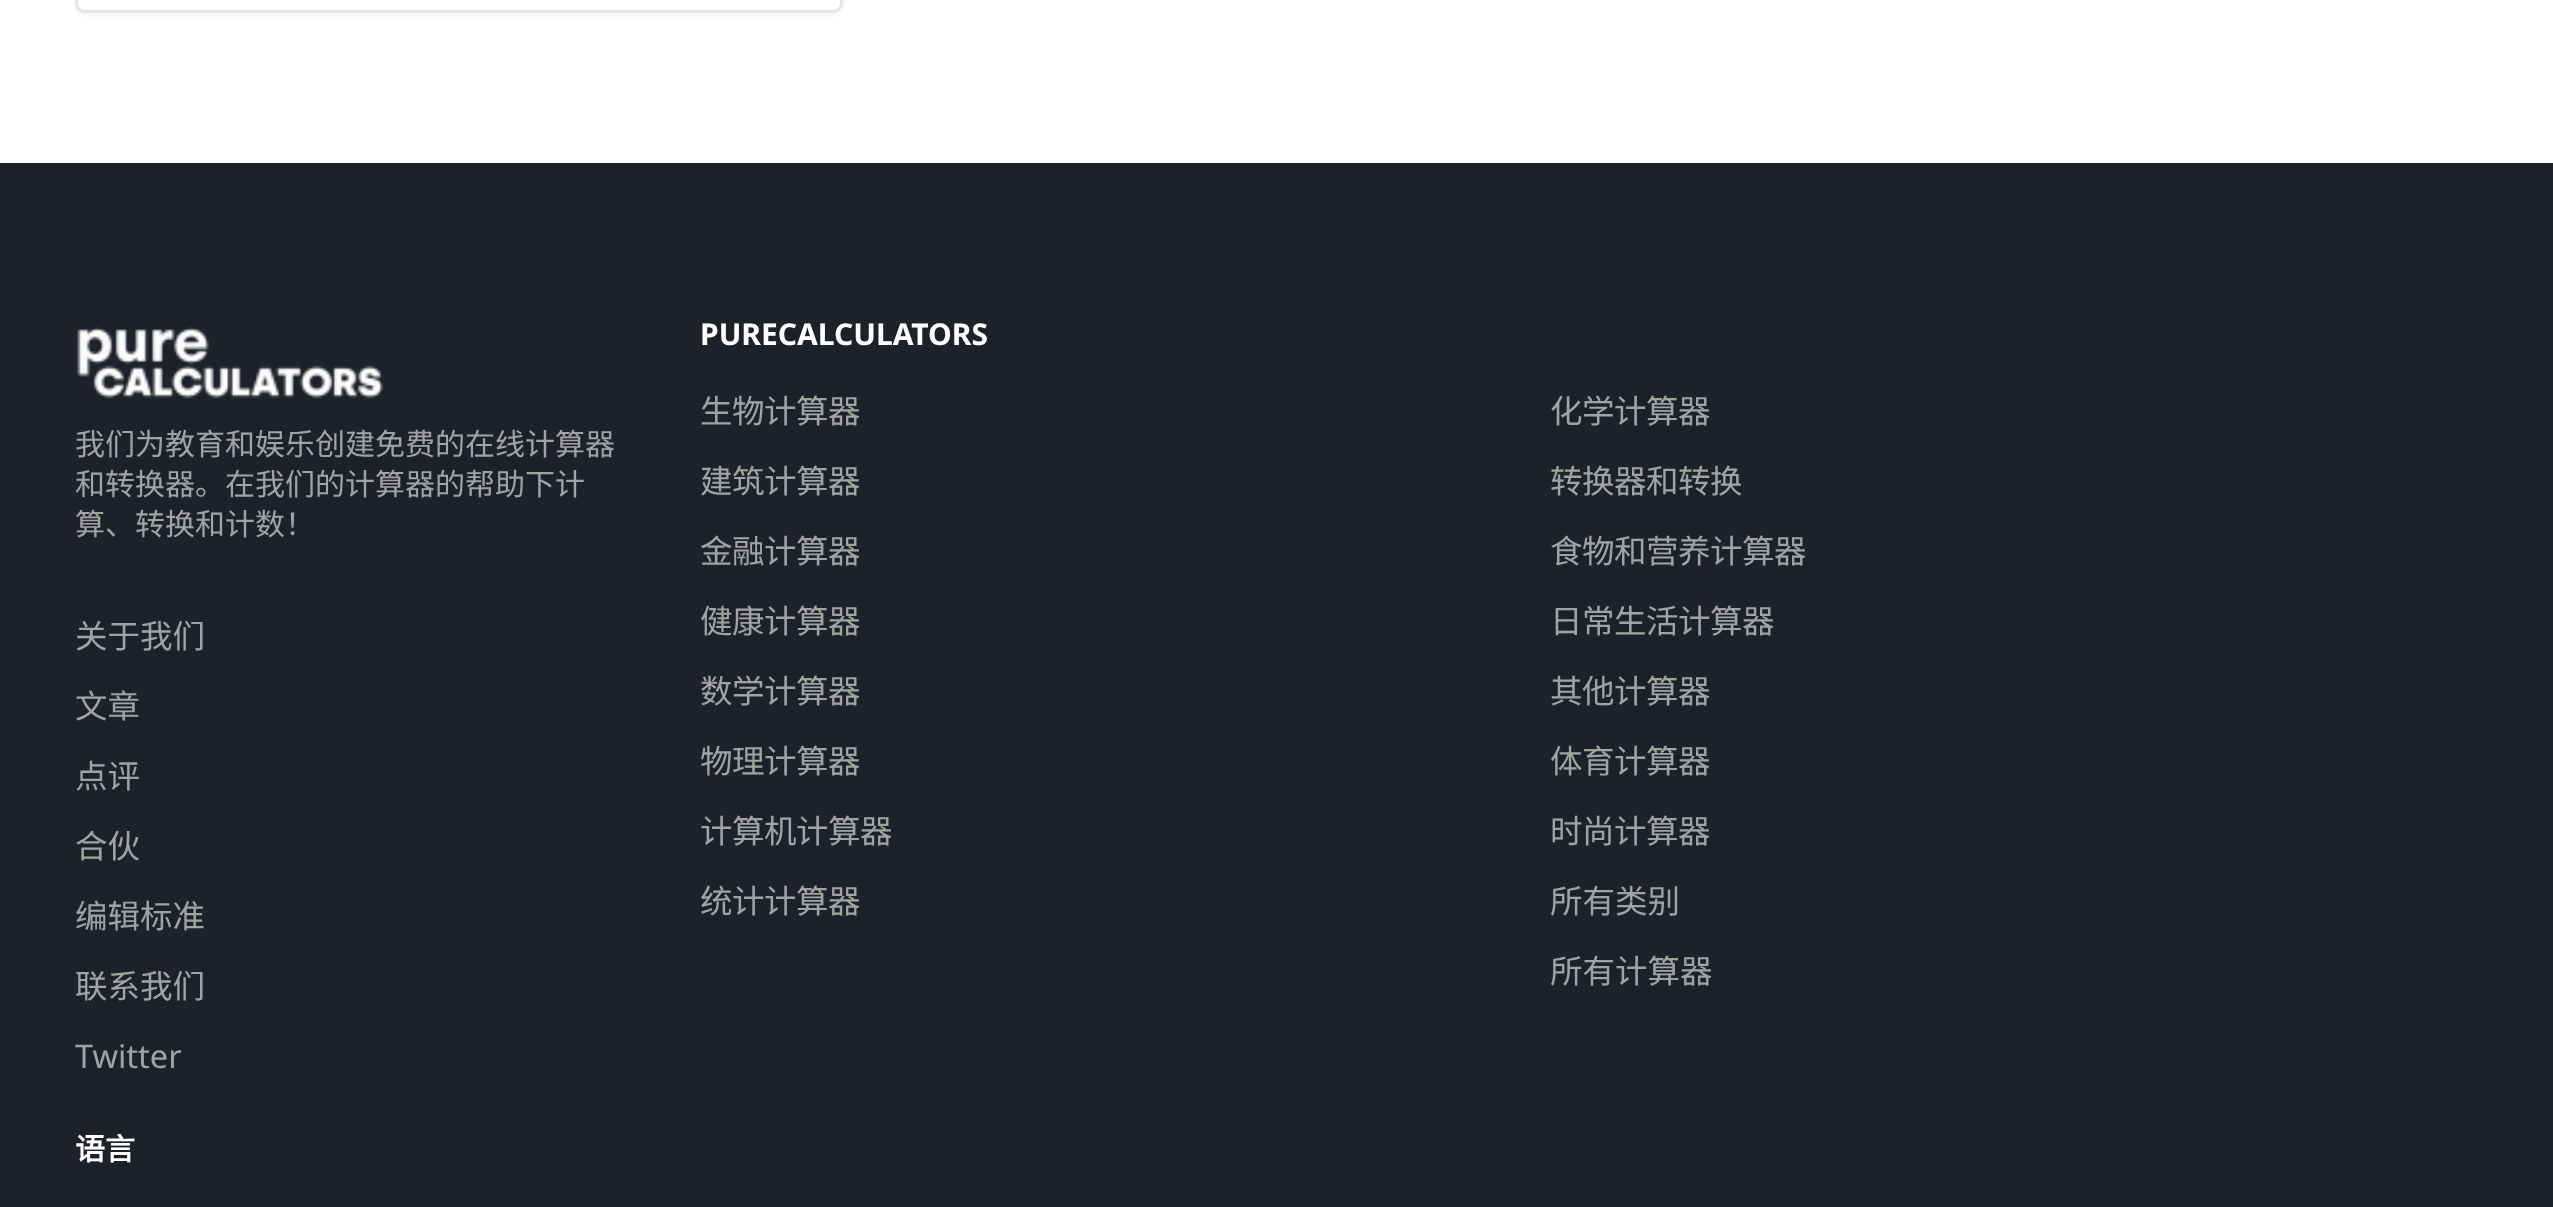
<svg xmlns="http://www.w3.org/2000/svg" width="2553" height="1207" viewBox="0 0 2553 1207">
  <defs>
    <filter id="blur1" x="-50%" y="-200%" width="200%" height="500%"><feGaussianBlur stdDeviation="2.5"/></filter>
  </defs>
  <rect width="100%" height="100%" fill="#ffffff"/>
  <rect x="75" y="-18" width="768" height="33" rx="10" fill="#000000" fill-opacity="0.05" filter="url(#blur1)"/>
  <rect x="76.5" y="-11.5" width="765" height="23" rx="8.5" fill="#ffffff" stroke="#e5e5e5" stroke-width="3"/>
  <rect x="0" y="163" width="2553" height="1044" fill="#1d222a"/>
  <image x="77" y="327" width="307" height="72" href="img1.png"/>
  <text x="75" y="455" font-family="Noto Sans CJK SC" font-size="30" fill="#a3a3a3">我们为教育和娱乐创建免费的在线计算器</text>
  <text x="75" y="495" font-family="Noto Sans CJK SC" font-size="30" fill="#a3a3a3">和转换器。在我们的计算器的帮助下计</text>
  <text x="75" y="535" font-family="Noto Sans CJK SC" font-size="30" fill="#a3a3a3">算、转换和计数！</text>
  <text x="75" y="648" font-family="Noto Sans CJK SC" font-size="32.5" fill="#a3a3a3">关于我们</text>
  <text x="75" y="718" font-family="Noto Sans CJK SC" font-size="32.5" fill="#a3a3a3">文章</text>
  <text x="75" y="788" font-family="Noto Sans CJK SC" font-size="32.5" fill="#a3a3a3">点评</text>
  <text x="75" y="858" font-family="Noto Sans CJK SC" font-size="32.5" fill="#a3a3a3">合伙</text>
  <text x="75" y="928" font-family="Noto Sans CJK SC" font-size="32.5" fill="#a3a3a3">编辑标准</text>
  <text x="75" y="998" font-family="Noto Sans CJK SC" font-size="32.5" fill="#a3a3a3">联系我们</text>
  <text x="75" y="1068" font-family="Noto Sans" font-size="32.5" fill="#a3a3a3">Twitter</text>
  <text x="700" y="345" font-family="Noto Sans" font-size="30" font-weight="bold" fill="#ffffff">PURECALCULATORS</text>
  <text x="700" y="423" font-family="Noto Sans CJK SC" font-size="32.5" letter-spacing="-0.5" fill="#a3a3a3">生物计算器</text>
  <text x="1550" y="423" font-family="Noto Sans CJK SC" font-size="32.5" letter-spacing="-0.5" fill="#a3a3a3">化学计算器</text>
  <text x="700" y="493" font-family="Noto Sans CJK SC" font-size="32.5" letter-spacing="-0.5" fill="#a3a3a3">建筑计算器</text>
  <text x="1550" y="493" font-family="Noto Sans CJK SC" font-size="32.5" letter-spacing="-0.5" fill="#a3a3a3">转换器和转换</text>
  <text x="700" y="563" font-family="Noto Sans CJK SC" font-size="32.5" letter-spacing="-0.5" fill="#a3a3a3">金融计算器</text>
  <text x="1550" y="563" font-family="Noto Sans CJK SC" font-size="32.5" letter-spacing="-0.5" fill="#a3a3a3">食物和营养计算器</text>
  <text x="700" y="633" font-family="Noto Sans CJK SC" font-size="32.5" letter-spacing="-0.5" fill="#a3a3a3">健康计算器</text>
  <text x="1550" y="633" font-family="Noto Sans CJK SC" font-size="32.5" letter-spacing="-0.5" fill="#a3a3a3">日常生活计算器</text>
  <text x="700" y="703" font-family="Noto Sans CJK SC" font-size="32.5" letter-spacing="-0.5" fill="#a3a3a3">数学计算器</text>
  <text x="1550" y="703" font-family="Noto Sans CJK SC" font-size="32.5" letter-spacing="-0.5" fill="#a3a3a3">其他计算器</text>
  <text x="700" y="773" font-family="Noto Sans CJK SC" font-size="32.5" letter-spacing="-0.5" fill="#a3a3a3">物理计算器</text>
  <text x="1550" y="773" font-family="Noto Sans CJK SC" font-size="32.5" letter-spacing="-0.5" fill="#a3a3a3">体育计算器</text>
  <text x="700" y="843" font-family="Noto Sans CJK SC" font-size="32.5" letter-spacing="-0.5" fill="#a3a3a3">计算机计算器</text>
  <text x="1550" y="843" font-family="Noto Sans CJK SC" font-size="32.5" letter-spacing="-0.5" fill="#a3a3a3">时尚计算器</text>
  <text x="700" y="913" font-family="Noto Sans CJK SC" font-size="32.5" letter-spacing="-0.5" fill="#a3a3a3">统计计算器</text>
  <text x="1550" y="913" font-family="Noto Sans CJK SC" font-size="32.5" fill="#a3a3a3">所有类别</text>
  <text x="1550" y="983" font-family="Noto Sans CJK SC" font-size="32.5" fill="#a3a3a3">所有计算器</text>
  <text x="75" y="1160" font-family="Noto Sans CJK SC" font-size="30" font-weight="bold" fill="#ffffff">语言</text>
</svg>
